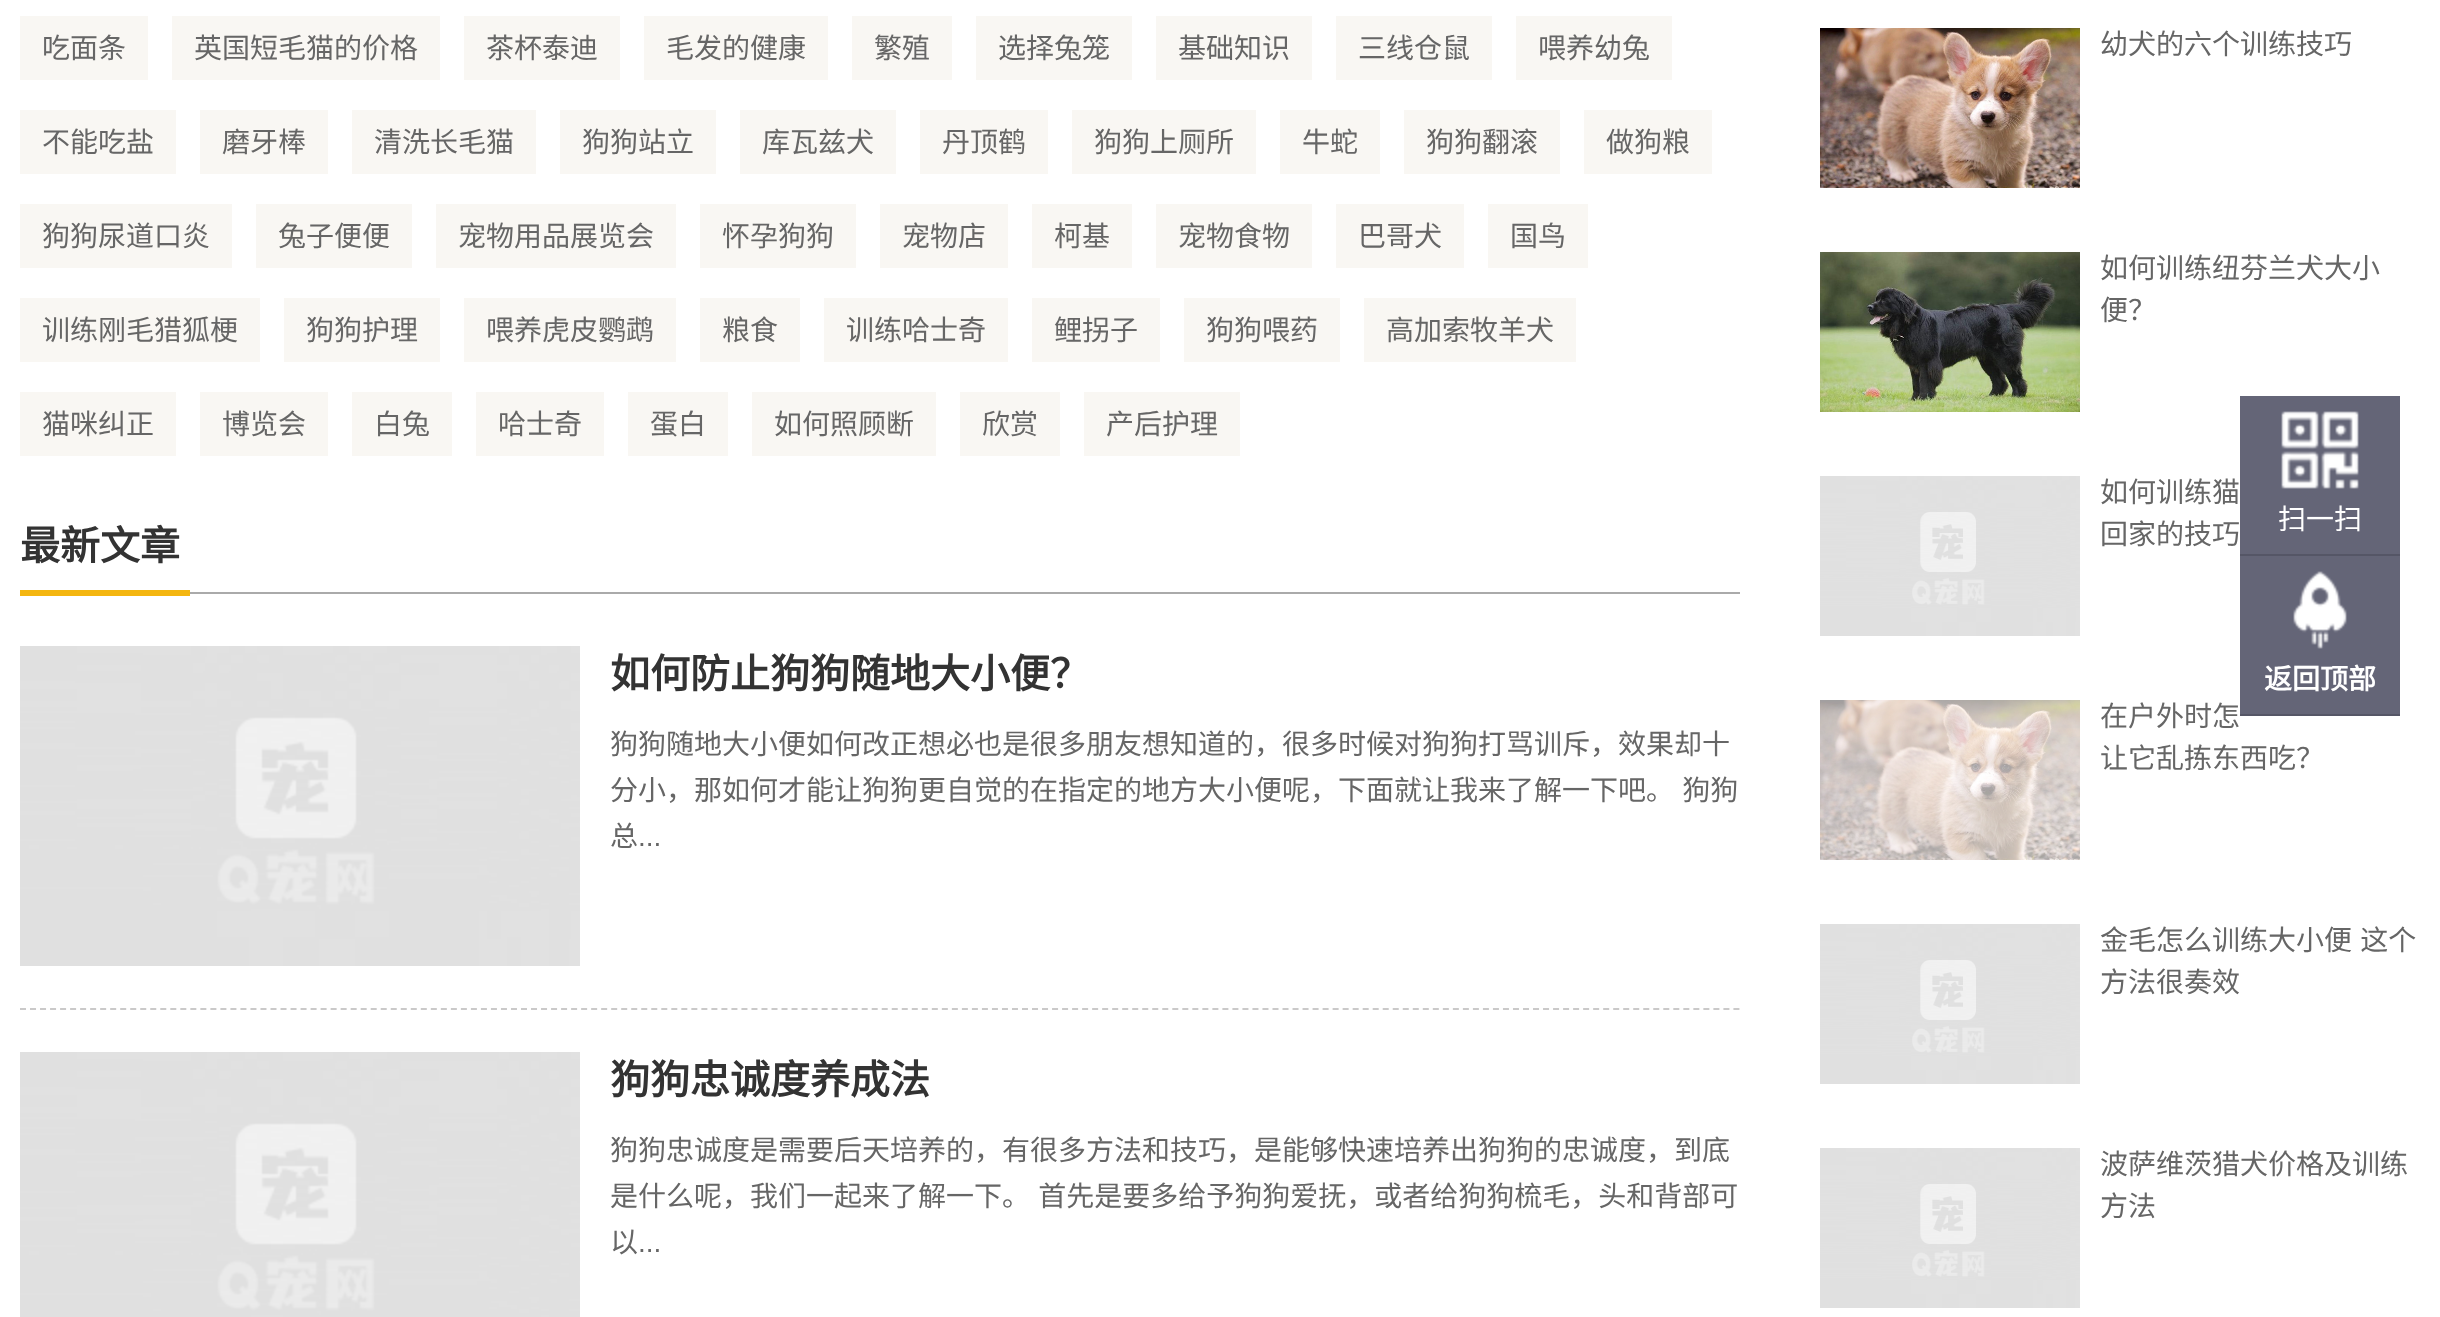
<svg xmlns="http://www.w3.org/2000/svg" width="2440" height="1317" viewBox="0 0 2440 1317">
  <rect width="100%" height="100%" fill="#ffffff"/>
  <rect x="20" y="16" width="128" height="64" fill="#f9f7f3"/>
  <text x="42" y="58" font-family="Noto Sans CJK SC" font-size="28" fill="#666666">吃面条</text>
  <rect x="172" y="16" width="268" height="64" fill="#f9f7f3"/>
  <text x="194" y="58" font-family="Noto Sans CJK SC" font-size="28" fill="#666666">英国短毛猫的价格</text>
  <rect x="464" y="16" width="156" height="64" fill="#f9f7f3"/>
  <text x="486" y="58" font-family="Noto Sans CJK SC" font-size="28" fill="#666666">茶杯泰迪</text>
  <rect x="644" y="16" width="184" height="64" fill="#f9f7f3"/>
  <text x="666" y="58" font-family="Noto Sans CJK SC" font-size="28" fill="#666666">毛发的健康</text>
  <rect x="852" y="16" width="100" height="64" fill="#f9f7f3"/>
  <text x="874" y="58" font-family="Noto Sans CJK SC" font-size="28" fill="#666666">繁殖</text>
  <rect x="976" y="16" width="156" height="64" fill="#f9f7f3"/>
  <text x="998" y="58" font-family="Noto Sans CJK SC" font-size="28" fill="#666666">选择兔笼</text>
  <rect x="1156" y="16" width="156" height="64" fill="#f9f7f3"/>
  <text x="1178" y="58" font-family="Noto Sans CJK SC" font-size="28" fill="#666666">基础知识</text>
  <rect x="1336" y="16" width="156" height="64" fill="#f9f7f3"/>
  <text x="1358" y="58" font-family="Noto Sans CJK SC" font-size="28" fill="#666666">三线仓鼠</text>
  <rect x="1516" y="16" width="156" height="64" fill="#f9f7f3"/>
  <text x="1538" y="58" font-family="Noto Sans CJK SC" font-size="28" fill="#666666">喂养幼兔</text>
  <rect x="20" y="110" width="156" height="64" fill="#f9f7f3"/>
  <text x="42" y="152" font-family="Noto Sans CJK SC" font-size="28" fill="#666666">不能吃盐</text>
  <rect x="200" y="110" width="128" height="64" fill="#f9f7f3"/>
  <text x="222" y="152" font-family="Noto Sans CJK SC" font-size="28" fill="#666666">磨牙棒</text>
  <rect x="352" y="110" width="184" height="64" fill="#f9f7f3"/>
  <text x="374" y="152" font-family="Noto Sans CJK SC" font-size="28" fill="#666666">清洗长毛猫</text>
  <rect x="560" y="110" width="156" height="64" fill="#f9f7f3"/>
  <text x="582" y="152" font-family="Noto Sans CJK SC" font-size="28" fill="#666666">狗狗站立</text>
  <rect x="740" y="110" width="156" height="64" fill="#f9f7f3"/>
  <text x="762" y="152" font-family="Noto Sans CJK SC" font-size="28" fill="#666666">库瓦兹犬</text>
  <rect x="920" y="110" width="128" height="64" fill="#f9f7f3"/>
  <text x="942" y="152" font-family="Noto Sans CJK SC" font-size="28" fill="#666666">丹顶鹤</text>
  <rect x="1072" y="110" width="184" height="64" fill="#f9f7f3"/>
  <text x="1094" y="152" font-family="Noto Sans CJK SC" font-size="28" fill="#666666">狗狗上厕所</text>
  <rect x="1280" y="110" width="100" height="64" fill="#f9f7f3"/>
  <text x="1302" y="152" font-family="Noto Sans CJK SC" font-size="28" fill="#666666">牛蛇</text>
  <rect x="1404" y="110" width="156" height="64" fill="#f9f7f3"/>
  <text x="1426" y="152" font-family="Noto Sans CJK SC" font-size="28" fill="#666666">狗狗翻滚</text>
  <rect x="1584" y="110" width="128" height="64" fill="#f9f7f3"/>
  <text x="1606" y="152" font-family="Noto Sans CJK SC" font-size="28" fill="#666666">做狗粮</text>
  <rect x="20" y="204" width="212" height="64" fill="#f9f7f3"/>
  <text x="42" y="246" font-family="Noto Sans CJK SC" font-size="28" fill="#666666">狗狗尿道口炎</text>
  <rect x="256" y="204" width="156" height="64" fill="#f9f7f3"/>
  <text x="278" y="246" font-family="Noto Sans CJK SC" font-size="28" fill="#666666">兔子便便</text>
  <rect x="436" y="204" width="240" height="64" fill="#f9f7f3"/>
  <text x="458" y="246" font-family="Noto Sans CJK SC" font-size="28" fill="#666666">宠物用品展览会</text>
  <rect x="700" y="204" width="156" height="64" fill="#f9f7f3"/>
  <text x="722" y="246" font-family="Noto Sans CJK SC" font-size="28" fill="#666666">怀孕狗狗</text>
  <rect x="880" y="204" width="128" height="64" fill="#f9f7f3"/>
  <text x="902" y="246" font-family="Noto Sans CJK SC" font-size="28" fill="#666666">宠物店</text>
  <rect x="1032" y="204" width="100" height="64" fill="#f9f7f3"/>
  <text x="1054" y="246" font-family="Noto Sans CJK SC" font-size="28" fill="#666666">柯基</text>
  <rect x="1156" y="204" width="156" height="64" fill="#f9f7f3"/>
  <text x="1178" y="246" font-family="Noto Sans CJK SC" font-size="28" fill="#666666">宠物食物</text>
  <rect x="1336" y="204" width="128" height="64" fill="#f9f7f3"/>
  <text x="1358" y="246" font-family="Noto Sans CJK SC" font-size="28" fill="#666666">巴哥犬</text>
  <rect x="1488" y="204" width="100" height="64" fill="#f9f7f3"/>
  <text x="1510" y="246" font-family="Noto Sans CJK SC" font-size="28" fill="#666666">国鸟</text>
  <rect x="20" y="298" width="240" height="64" fill="#f9f7f3"/>
  <text x="42" y="340" font-family="Noto Sans CJK SC" font-size="28" fill="#666666">训练刚毛猎狐梗</text>
  <rect x="284" y="298" width="156" height="64" fill="#f9f7f3"/>
  <text x="306" y="340" font-family="Noto Sans CJK SC" font-size="28" fill="#666666">狗狗护理</text>
  <rect x="464" y="298" width="212" height="64" fill="#f9f7f3"/>
  <text x="486" y="340" font-family="Noto Sans CJK SC" font-size="28" fill="#666666">喂养虎皮鹦鹉</text>
  <rect x="700" y="298" width="100" height="64" fill="#f9f7f3"/>
  <text x="722" y="340" font-family="Noto Sans CJK SC" font-size="28" fill="#666666">粮食</text>
  <rect x="824" y="298" width="184" height="64" fill="#f9f7f3"/>
  <text x="846" y="340" font-family="Noto Sans CJK SC" font-size="28" fill="#666666">训练哈士奇</text>
  <rect x="1032" y="298" width="128" height="64" fill="#f9f7f3"/>
  <text x="1054" y="340" font-family="Noto Sans CJK SC" font-size="28" fill="#666666">鲤拐子</text>
  <rect x="1184" y="298" width="156" height="64" fill="#f9f7f3"/>
  <text x="1206" y="340" font-family="Noto Sans CJK SC" font-size="28" fill="#666666">狗狗喂药</text>
  <rect x="1364" y="298" width="212" height="64" fill="#f9f7f3"/>
  <text x="1386" y="340" font-family="Noto Sans CJK SC" font-size="28" fill="#666666">高加索牧羊犬</text>
  <rect x="20" y="392" width="156" height="64" fill="#f9f7f3"/>
  <text x="42" y="434" font-family="Noto Sans CJK SC" font-size="28" fill="#666666">猫咪纠正</text>
  <rect x="200" y="392" width="128" height="64" fill="#f9f7f3"/>
  <text x="222" y="434" font-family="Noto Sans CJK SC" font-size="28" fill="#666666">博览会</text>
  <rect x="352" y="392" width="100" height="64" fill="#f9f7f3"/>
  <text x="374" y="434" font-family="Noto Sans CJK SC" font-size="28" fill="#666666">白兔</text>
  <rect x="476" y="392" width="128" height="64" fill="#f9f7f3"/>
  <text x="498" y="434" font-family="Noto Sans CJK SC" font-size="28" fill="#666666">哈士奇</text>
  <rect x="628" y="392" width="100" height="64" fill="#f9f7f3"/>
  <text x="650" y="434" font-family="Noto Sans CJK SC" font-size="28" fill="#666666">蛋白</text>
  <rect x="752" y="392" width="184" height="64" fill="#f9f7f3"/>
  <text x="774" y="434" font-family="Noto Sans CJK SC" font-size="28" fill="#666666">如何照顾断</text>
  <rect x="960" y="392" width="100" height="64" fill="#f9f7f3"/>
  <text x="982" y="434" font-family="Noto Sans CJK SC" font-size="28" fill="#666666">欣赏</text>
  <rect x="1084" y="392" width="156" height="64" fill="#f9f7f3"/>
  <text x="1106" y="434" font-family="Noto Sans CJK SC" font-size="28" fill="#666666">产后护理</text>
  <rect x="190" y="592" width="1550" height="2" fill="#aaaaaa"/>
  <rect x="20" y="590" width="170" height="6" fill="#f4b610"/>
  <text x="20" y="560" font-family="Noto Sans CJK SC" font-size="40" font-weight="bold" fill="#333333">最新文章</text>
  <image x="20" y="646" width="560" height="320" href="img1.png"/>
  <text x="610" y="688" font-family="Noto Sans CJK SC" font-size="40" font-weight="bold" fill="#333333">如何防止狗狗随地大小便？</text>
  <text x="610" y="754" font-family="Noto Sans CJK SC" font-size="28" fill="#666666">狗狗随地大小便如何改正想必也是很多朋友想知道的，很多时候对狗狗打骂训斥，效果却十</text>
  <text x="610" y="800" word-spacing="2" font-family="Noto Sans CJK SC" font-size="28" fill="#666666">分小，那如何才能让狗狗更自觉的在指定的地方大小便呢，下面就让我来了解一下吧。 狗狗</text>
  <text x="610" y="846" font-family="Noto Sans CJK SC" font-size="28" fill="#666666">总</text>
  <text x="638" y="846" font-family="Liberation Sans" font-size="28" fill="#666666">...</text>
  <path d="M20 1009H1740" fill="none" stroke="#cac9c9" stroke-width="2" stroke-dasharray="6 4.02"/>
  <image x="20" y="1052" width="560" height="265" href="img2.png"/>
  <text x="610" y="1094" font-family="Noto Sans CJK SC" font-size="40" font-weight="bold" fill="#333333">狗狗忠诚度养成法</text>
  <text x="610" y="1160" font-family="Noto Sans CJK SC" font-size="28" fill="#666666">狗狗忠诚度是需要后天培养的，有很多方法和技巧，是能够快速培养出狗狗的忠诚度，到底</text>
  <text x="610" y="1206" word-spacing="2" font-family="Noto Sans CJK SC" font-size="28" fill="#666666">是什么呢，我们一起来了解一下。 首先是要多给予狗狗爱抚，或者给狗狗梳毛，头和背部可</text>
  <text x="610" y="1252" font-family="Noto Sans CJK SC" font-size="28" fill="#666666">以</text>
  <text x="638" y="1252" font-family="Liberation Sans" font-size="28" fill="#666666">...</text>
  <image x="1820" y="28" width="260" height="160" href="img3.png"/>
  <text x="2100" y="54" font-family="Noto Sans CJK SC" font-size="28" fill="#666666">幼犬的六个训练技巧</text>
  <image x="1820" y="252" width="260" height="160" href="img4.png"/>
  <text x="2100" y="278" font-family="Noto Sans CJK SC" font-size="28" fill="#666666">如何训练纽芬兰犬大小</text>
  <text x="2100" y="320" font-family="Noto Sans CJK SC" font-size="28" fill="#666666">便？</text>
  <image x="1820" y="476" width="260" height="160" href="img5.png"/>
  <text x="2100" y="502" font-family="Noto Sans CJK SC" font-size="28" fill="#666666">如何训练猫</text>
  <text x="2100" y="544" font-family="Noto Sans CJK SC" font-size="28" fill="#666666">回家的技巧</text>
  <image x="1820" y="700" width="260" height="160" href="img6.png"/>
  <text x="2100" y="726" font-family="Noto Sans CJK SC" font-size="28" fill="#666666">在户外时怎</text>
  <text x="2100" y="768" font-family="Noto Sans CJK SC" font-size="28" fill="#666666">让它乱拣东西吃？</text>
  <image x="1820" y="924" width="260" height="160" href="img5.png"/>
  <text x="2100" y="950" word-spacing="2" font-family="Noto Sans CJK SC" font-size="28" fill="#666666">金毛怎么训练大小便 这个</text>
  <text x="2100" y="992" font-family="Noto Sans CJK SC" font-size="28" fill="#666666">方法很奏效</text>
  <image x="1820" y="1148" width="260" height="160" href="img5.png"/>
  <text x="2100" y="1174" font-family="Noto Sans CJK SC" font-size="28" fill="#666666">波萨维茨猎犬价格及训练</text>
  <text x="2100" y="1216" font-family="Noto Sans CJK SC" font-size="28" fill="#666666">方法</text>
  <rect x="2240" y="396" width="160" height="158" fill="#646577"/>
  <image x="2281" y="411" width="78" height="78" href="img7.png"/>
  <rect x="2240" y="554" width="160" height="2" fill="#555666"/>
  <text x="2278" y="529" font-family="Noto Sans CJK SC" font-size="28" fill="#ffffff">扫一扫</text>
  <rect x="2240" y="556" width="160" height="158" fill="#646577"/>
  <image x="2293" y="571" width="54" height="78" href="img8.png"/>
  <rect x="2240" y="714" width="160" height="2" fill="#555666"/>
  <text x="2264" y="689" font-family="Noto Sans CJK SC" font-size="28" font-weight="bold" fill="#ffffff">返回顶部</text>
</svg>
